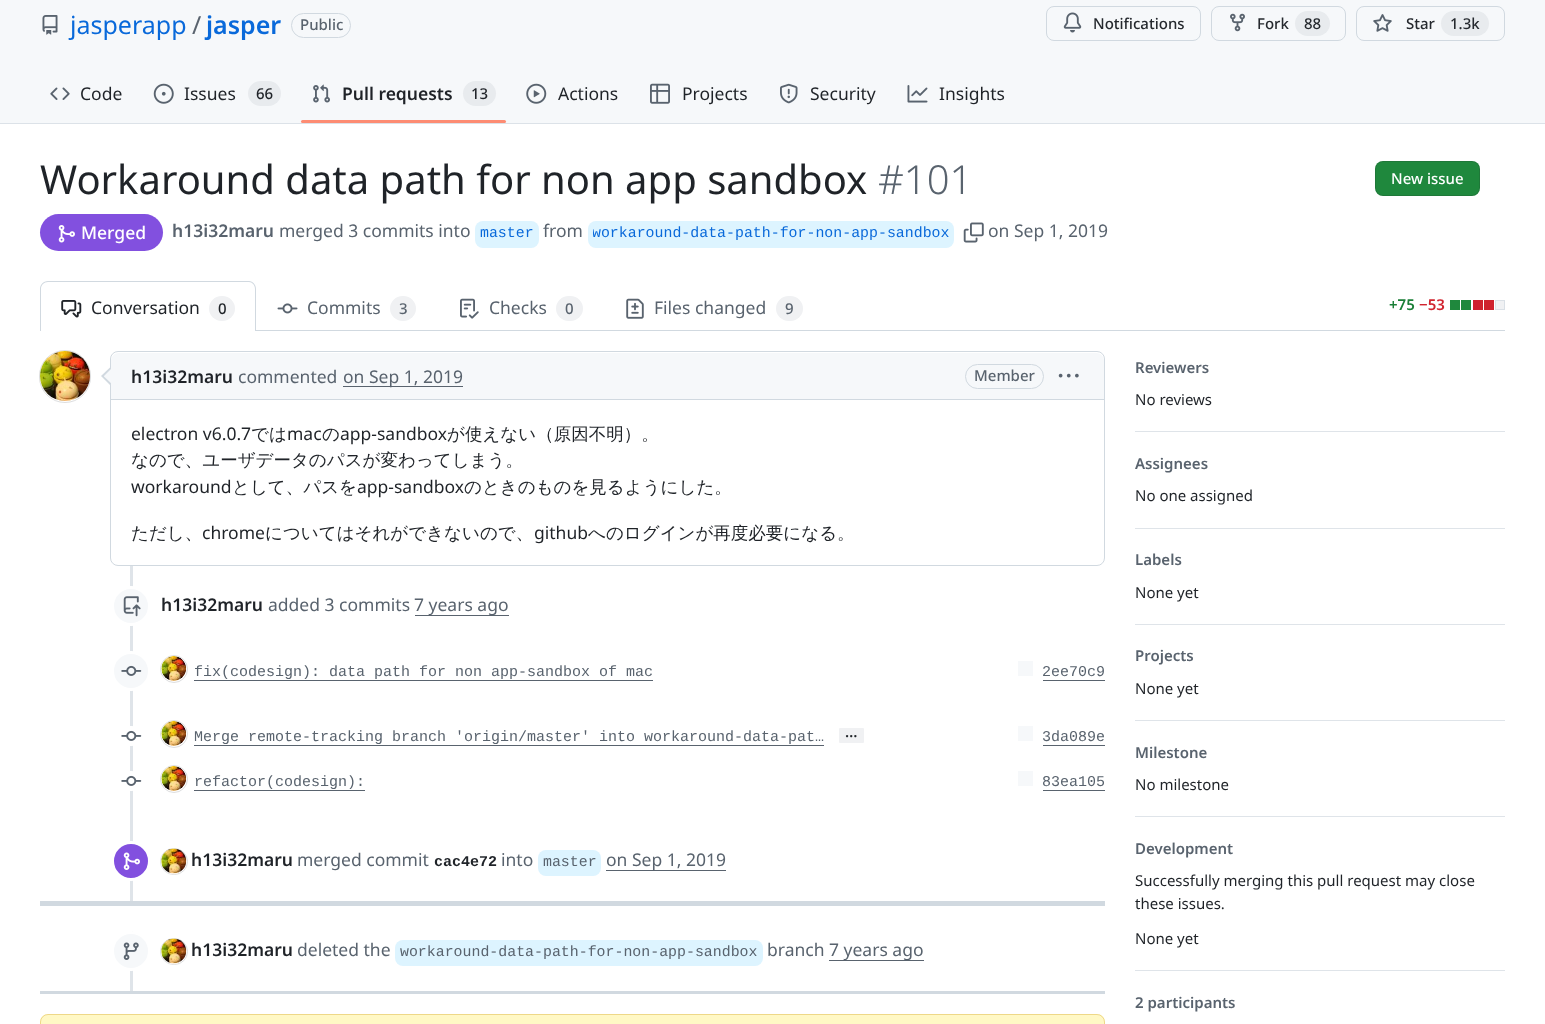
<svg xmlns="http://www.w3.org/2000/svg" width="1545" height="1024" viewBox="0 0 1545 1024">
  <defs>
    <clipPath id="clip1"><rect x="593" y="221" width="356" height="27"/></clipPath>
  </defs>
  <rect width="100%" height="100%" fill="#ffffff"/>
  <rect x="0" y="0" width="1545" height="123" fill="#f6f8fa"/>
  <image x="42" y="15" width="16" height="20" href="img1.png"/>
  <text x="70" y="34" font-family="Noto Sans" font-size="25" fill="#0969da">jasperapp</text>
  <text x="192" y="34" font-family="Noto Sans" font-size="25" fill="#59636e">/</text>
  <text x="206" y="34" font-family="Noto Sans" font-size="25" font-weight="600" fill="#0969da">jasper</text>
  <rect x="291.5" y="13.5" width="59" height="24" rx="12" fill="none" stroke="#d1d9e0"/>
  <text x="300" y="30" font-family="Noto Sans" font-size="15" font-weight="500" fill="#59636e">Public</text>
  <rect x="1046.5" y="6.5" width="154" height="34" rx="7.5" fill="none" stroke="#d1d9e0"/>
  <image x="1063" y="12" width="19" height="21" href="img2.png"/>
  <text x="1093" y="29" font-family="Noto Sans" font-size="15" font-weight="500" fill="#25292e">Notifications</text>
  <rect x="1211.5" y="6.5" width="134" height="34" rx="7.5" fill="none" stroke="#d1d9e0"/>
  <image x="1230" y="13" width="15" height="19" href="img3.png"/>
  <text x="1257" y="29" font-family="Noto Sans" font-size="15" font-weight="500" fill="#25292e">Fork</text>
  <rect x="1295" y="11" width="35" height="25" rx="12.5" fill="#e8ebee"/>
  <text x="1304" y="29" font-family="Noto Sans" font-size="15" font-weight="500" fill="#25292e">88</text>
  <rect x="1356.5" y="6.5" width="148" height="34" rx="7.5" fill="none" stroke="#d1d9e0"/>
  <image x="1373" y="14" width="19" height="18" href="img4.png"/>
  <text x="1406" y="29" font-family="Noto Sans" font-size="15" font-weight="500" fill="#25292e">Star</text>
  <rect x="1441" y="11" width="48" height="25" rx="12.5" fill="#e8ebee"/>
  <text x="1450" y="29" font-family="Noto Sans" font-size="15" font-weight="500" fill="#25292e">1.3k</text>
  <rect x="0" y="123" width="1545" height="1" fill="#dce2e8"/>
  <image x="50" y="87" width="20" height="13" href="img5.png"/>
  <text x="80" y="100" font-family="Noto Sans" font-size="17.5" fill="#1f2328">Code</text>
  <image x="153" y="83" width="21" height="21" href="img6.png"/>
  <text x="184" y="100" font-family="Noto Sans" font-size="17.5" fill="#1f2328">Issues</text>
  <rect x="248" y="81" width="33" height="25" rx="12.5" fill="#e8ebee"/>
  <text x="256" y="99" font-family="Noto Sans" font-size="15" font-weight="500" fill="#1f2328">66</text>
  <image x="313" y="84" width="17" height="19" href="img7.png"/>
  <text x="342" y="100" font-family="Noto Sans" font-size="17.5" font-weight="600" fill="#1f2328">Pull requests</text>
  <rect x="463" y="81" width="33" height="25" rx="12.5" fill="#e8ebee"/>
  <text x="471" y="99" font-family="Noto Sans" font-size="15" font-weight="500" fill="#1f2328">13</text>
  <rect x="301" y="120" width="205" height="3" rx="1.5" fill="#fd8c73"/>
  <image x="526" y="83" width="21" height="21" href="img8.png"/>
  <text x="558" y="100" font-family="Noto Sans" font-size="17.5" fill="#1f2328">Actions</text>
  <image x="650" y="83" width="20" height="21" href="img9.png"/>
  <text x="682" y="100" font-family="Noto Sans" font-size="17.5" fill="#1f2328">Projects</text>
  <image x="780" y="83" width="18" height="21" href="img10.png"/>
  <text x="810" y="100" font-family="Noto Sans" font-size="17.5" fill="#1f2328">Security</text>
  <image x="907" y="85" width="21" height="18" href="img11.png"/>
  <text x="939" y="100" font-family="Noto Sans" font-size="17.5" fill="#1f2328">Insights</text>
  <text x="40" y="194" font-family="Noto Sans" font-size="40" fill="#1f2328">Workaround data path for non app sandbox</text>
  <text x="878" y="194" font-family="Noto Sans" font-size="40" font-weight="300" fill="#59636e">#101</text>
  <rect x="1375" y="161" width="105" height="35" rx="8" fill="#1f883d"/>
  <rect x="1375.5" y="161.5" width="104" height="34" rx="7.5" fill="none" stroke="#1f2328" stroke-opacity="0.15"/>
  <text x="1391" y="184" font-family="Noto Sans" font-size="15" font-weight="500" fill="#ffffff">New issue</text>
  <rect x="40" y="214" width="123" height="37" rx="18.5" fill="#8250df"/>
  <image x="58" y="225" width="17" height="18" href="img12.png"/>
  <text x="81" y="239" font-family="Noto Sans" font-size="17.5" font-weight="500" fill="#ffffff">Merged</text>
  <text x="172" y="237" font-family="Noto Sans" font-size="17.5" font-weight="600" fill="#59636e">h13i32maru</text>
  <text x="279" y="237" font-family="Noto Sans" font-size="17.5" fill="#59636e">merged 3 commits into</text>
  <rect x="475" y="221" width="64" height="27" rx="8" fill="#ddf4ff"/>
  <text x="480" y="237" font-family="Liberation Mono" font-size="14.9" fill="#0969da">master</text>
  <text x="543" y="237" font-family="Noto Sans" font-size="17.5" fill="#59636e">from</text>
  <rect x="588" y="221" width="366" height="27" rx="8" fill="#ddf4ff"/>
  <g clip-path="url(#clip1)">
    <text x="592" y="237" font-family="Liberation Mono" font-size="14.9" fill="#0969da">workaround-data-path-for-non-app-sandbox</text>
  </g>
  <image x="963" y="222" width="21" height="21" href="img13.png"/>
  <text x="988" y="237" font-family="Noto Sans" font-size="17.5" fill="#59636e">on Sep 1, 2019</text>
  <rect x="256" y="330" width="1249" height="1" fill="#d1d9e0"/>
  <path d="M48 281H249C253 281 256 285 256 289V331H40V289C40 285 43 281 48 281ZM48 282H249C252 282 255 285 255 289V331H41V289C41 285 44 282 48 282Z" fill="#d1d9e0" fill-rule="evenodd"/>
  <image x="61" y="300" width="21" height="18" href="img14.png"/>
  <text x="91" y="314" font-family="Noto Sans" font-size="17.5" fill="#1f2328">Conversation</text>
  <rect x="209" y="296" width="26" height="25" rx="12.5" fill="#f0f1f3"/>
  <text x="218" y="314" font-family="Noto Sans" font-size="15" font-weight="500" fill="#1f2328">0</text>
  <image x="277" y="303" width="21" height="11" href="img15.png"/>
  <text x="307" y="314" font-family="Noto Sans" font-size="17.5" fill="#59636e">Commits</text>
  <rect x="390" y="296" width="26" height="25" rx="12.5" fill="#f0f1f3"/>
  <text x="399" y="314" font-family="Noto Sans" font-size="15" font-weight="500" fill="#59636e">3</text>
  <image x="460" y="298" width="19" height="21" href="img16.png"/>
  <text x="489" y="314" font-family="Noto Sans" font-size="17.5" fill="#59636e">Checks</text>
  <rect x="556" y="296" width="27" height="25" rx="12.5" fill="#f0f1f3"/>
  <text x="565" y="314" font-family="Noto Sans" font-size="15" font-weight="500" fill="#59636e">0</text>
  <image x="626" y="298" width="18" height="21" href="img17.png"/>
  <text x="654" y="314" font-family="Noto Sans" font-size="17.5" fill="#59636e">Files changed</text>
  <rect x="776" y="296" width="27" height="25" rx="12.5" fill="#f0f1f3"/>
  <text x="785" y="314" font-family="Noto Sans" font-size="15" font-weight="500" fill="#59636e">9</text>
  <text x="1389" y="310" font-family="Noto Sans" font-size="15" font-weight="600" fill="#1a7f37">+75</text>
  <text x="1419" y="310" font-family="Noto Sans" font-size="15" font-weight="600" fill="#d1242f">−53</text>
  <rect x="1450" y="300" width="10" height="10" fill="#1f883d"/>
  <rect x="1461" y="300" width="10" height="10" fill="#1f883d"/>
  <rect x="1473" y="300" width="10" height="10" fill="#cf222e"/>
  <rect x="1484" y="300" width="10" height="10" fill="#cf222e"/>
  <rect x="1495.5" y="300.5" width="9" height="9" fill="#f0f1f3" stroke="#dae0e6"/>
  <rect x="39.5" y="350.5" width="51" height="52" rx="25.5" fill="none" stroke="#dddedf"/>
  <circle cx="65" cy="376" r="25" fill="#ffffff"/>
  <image x="40" y="351" width="50" height="50" href="img18.png"/>
  <rect x="110.5" y="351.5" width="994" height="214" rx="7.5" fill="none" stroke="#d1d9e0"/>
  <path d="M101 376L111 366.5V386Z" fill="#d1d9e0"/>
  <path d="M119 353H1096C1100.5 353 1104 356.5 1104 361V400H111V361C111 356.5 114.5 353 119 353Z" fill="#f6f8fa"/>
  <path d="M104 376.5V376L114 366V386Z" fill="#f6f8fa"/>
  <rect x="111" y="399" width="993" height="1" fill="#d1d9e0"/>
  <text x="131" y="383" font-family="Noto Sans" font-size="17.5" font-weight="600" fill="#1f2328">h13i32maru</text>
  <text x="238" y="383" font-family="Noto Sans" font-size="17.5" fill="#59636e">commented</text>
  <rect x="343" y="386" width="120" height="1" fill="#59636e"/>
  <text x="343" y="383" font-family="Noto Sans" font-size="17.5" fill="#59636e">on Sep 1, 2019</text>
  <rect x="965.5" y="364.5" width="78" height="24" rx="12" fill="none" stroke="#d1d9e0"/>
  <text x="974" y="381" font-family="Noto Sans" font-size="15" font-weight="500" fill="#59636e">Member</text>
  <image x="1058" y="373" width="21" height="5" href="img19.png"/>
  <text x="131" y="440" font-family="Noto Sans" font-size="17.5" fill="#1f2328">electron v6.0.7</text>
  <text x="251" y="440" font-family="WenQuanYi Zen Hei" font-size="17.5" font-weight="500" fill="#1f2328">では</text>
  <text x="287" y="440" font-family="Noto Sans" font-size="17.5" fill="#1f2328">mac</text>
  <text x="322" y="440" font-family="WenQuanYi Zen Hei" font-size="17.5" font-weight="500" fill="#1f2328">の</text>
  <text x="340" y="440" font-family="Noto Sans" font-size="17.5" fill="#1f2328">app-sandbox</text>
  <text x="447" y="440" font-family="WenQuanYi Zen Hei" font-size="17.5" font-weight="500" fill="#1f2328">が使えない（原因不明）。</text>
  <text x="131" y="466" font-family="WenQuanYi Zen Hei" font-size="17.5" font-weight="500" fill="#1f2328">なので、ユーザデータのパスが変わってしまう。</text>
  <text x="131" y="493" font-family="Noto Sans" font-size="17.5" fill="#1f2328">workaround</text>
  <text x="232" y="493" font-family="WenQuanYi Zen Hei" font-size="17.5" font-weight="500" fill="#1f2328">として、パスを</text>
  <text x="357" y="493" font-family="Noto Sans" font-size="17.5" fill="#1f2328">app-sandbox</text>
  <text x="464" y="493" font-family="WenQuanYi Zen Hei" font-size="17.5" font-weight="500" fill="#1f2328">のときのものを見るようにした。</text>
  <text x="131" y="539" font-family="WenQuanYi Zen Hei" font-size="17.5" font-weight="500" fill="#1f2328">ただし、</text>
  <text x="202" y="539" font-family="Noto Sans" font-size="17.5" fill="#1f2328">chrome</text>
  <text x="265" y="539" font-family="WenQuanYi Zen Hei" font-size="17.5" font-weight="500" fill="#1f2328">についてはそれができないので、</text>
  <text x="534" y="539" font-family="Noto Sans" font-size="17.5" fill="#1f2328">github</text>
  <text x="588" y="539" font-family="WenQuanYi Zen Hei" font-size="17.5" font-weight="500" fill="#1f2328">へのログインが再度必要になる。</text>
  <rect x="130" y="566" width="3" height="335" fill="#dfe4e9"/>
  <circle cx="131" cy="606" r="18.5" fill="#f6f8fa" stroke="#ffffff" stroke-width="3"/>
  <image x="123" y="596" width="18" height="21" href="img20.png"/>
  <text x="161" y="611" font-family="Noto Sans" font-size="17.5" font-weight="600" fill="#1f2328">h13i32maru</text>
  <text x="268" y="611" font-family="Noto Sans" font-size="17.5" fill="#59636e">added 3 commits</text>
  <rect x="415" y="615" width="94" height="1" fill="#59636e"/>
  <text x="414" y="611" font-family="Noto Sans" font-size="17.5" fill="#59636e">7 years ago</text>
  <circle cx="131" cy="671" r="18.5" fill="#f6f8fa" stroke="#ffffff" stroke-width="3"/>
  <image x="121" y="665" width="21" height="11" href="img21.png"/>
  <circle cx="174" cy="669" r="13.5" fill="none" stroke="#dddedf"/>
  <circle cx="173.5" cy="668.5" r="12.5" fill="#ffffff"/>
  <image x="161" y="656" width="25" height="25" href="img22.png"/>
  <text x="194" y="676" font-family="Liberation Mono" font-size="15" fill="#59636e">fix(codesign): data path for non app-sandbox of mac</text>
  <rect x="194" y="680" width="459" height="1" fill="#59636e"/>
  <rect x="1018" y="661" width="15" height="15" fill="#f6f8fa"/>
  <text x="1042" y="676" font-family="Liberation Mono" font-size="15" fill="#59636e">2ee70c9</text>
  <rect x="1043" y="680" width="62" height="1" fill="#59636e"/>
  <ellipse cx="131" cy="736" rx="20" ry="10" fill="#ffffff"/>
  <image x="121" y="730" width="21" height="11" href="img23.png"/>
  <circle cx="174" cy="734" r="13.5" fill="none" stroke="#dddedf"/>
  <circle cx="173.5" cy="733.5" r="12.5" fill="#ffffff"/>
  <image x="161" y="721" width="25" height="25" href="img24.png"/>
  <text x="194" y="741" font-family="Liberation Mono" font-size="15" fill="#59636e">Merge remote-tracking branch 'origin/master' into workaround-data-pat…</text>
  <rect x="194" y="745" width="630" height="1" fill="#59636e"/>
  <rect x="839" y="728" width="25" height="15" rx="1" fill="#f0f1f3"/>
  <text x="845" y="737" font-family="Noto Sans" font-size="15" font-weight="600" fill="#1f2328">…</text>
  <rect x="1018" y="726" width="15" height="15" fill="#f6f8fa"/>
  <text x="1042" y="741" font-family="Liberation Mono" font-size="15" fill="#59636e">3da089e</text>
  <rect x="1043" y="745" width="62" height="1" fill="#59636e"/>
  <ellipse cx="131" cy="781" rx="20" ry="10" fill="#ffffff"/>
  <image x="121" y="775" width="21" height="11" href="img23.png"/>
  <circle cx="174" cy="779" r="13.5" fill="none" stroke="#dddedf"/>
  <circle cx="173.5" cy="778.5" r="12.5" fill="#ffffff"/>
  <image x="161" y="766" width="25" height="25" href="img24.png"/>
  <text x="194" y="786" font-family="Liberation Mono" font-size="15" fill="#59636e">refactor(codesign):</text>
  <rect x="194" y="790" width="171" height="1" fill="#59636e"/>
  <rect x="1018" y="771" width="15" height="15" fill="#f6f8fa"/>
  <text x="1042" y="786" font-family="Liberation Mono" font-size="15" fill="#59636e">83ea105</text>
  <rect x="1043" y="790" width="62" height="1" fill="#59636e"/>
  <circle cx="131" cy="861" r="18.5" fill="#8250df" stroke="#ffffff" stroke-width="3"/>
  <image x="123" y="852" width="17" height="18" href="img25.png"/>
  <rect x="160.5" y="848.5" width="27" height="26" rx="13" fill="none" stroke="#dddedf"/>
  <circle cx="173.5" cy="861.5" r="12.5" fill="#ffffff"/>
  <image x="161" y="848" width="26" height="26" href="img26.png"/>
  <text x="191" y="866" font-family="Noto Sans" font-size="17.5" font-weight="600" fill="#1f2328">h13i32maru</text>
  <text x="297" y="866" font-family="Noto Sans" font-size="17.5" fill="#59636e">merged commit</text>
  <text x="434" y="866" font-family="Liberation Mono" font-size="15" font-weight="bold" fill="#1f2328">cac4e72</text>
  <text x="501" y="866" font-family="Noto Sans" font-size="17.5" fill="#59636e">into</text>
  <rect x="538" y="850" width="63" height="26" rx="8" fill="#ddf4ff"/>
  <text x="543" y="866" font-family="Liberation Mono" font-size="14.9" fill="#59636e">master</text>
  <rect x="606" y="870" width="120" height="1" fill="#59636e"/>
  <text x="606" y="866" font-family="Noto Sans" font-size="17.5" fill="#59636e">on Sep 1, 2019</text>
  <rect x="40" y="901" width="1065" height="5" fill="#d1d9e0"/>
  <rect x="130" y="931" width="3" height="60" fill="#dfe4e9"/>
  <circle cx="131" cy="951" r="18.5" fill="#f6f8fa" stroke="#ffffff" stroke-width="3"/>
  <image x="123" y="942" width="16" height="18" href="img27.png"/>
  <rect x="160.5" y="938.5" width="27" height="26" rx="13" fill="none" stroke="#dddedf"/>
  <circle cx="173.5" cy="951.5" r="12.5" fill="#ffffff"/>
  <image x="161" y="938" width="26" height="26" href="img26.png"/>
  <text x="191" y="956" font-family="Noto Sans" font-size="17.5" font-weight="600" fill="#1f2328">h13i32maru</text>
  <text x="297" y="956" font-family="Noto Sans" font-size="17.5" fill="#59636e">deleted the</text>
  <rect x="395" y="940" width="368" height="26" rx="8" fill="#ddf4ff"/>
  <text x="400" y="956" font-family="Liberation Mono" font-size="14.9" fill="#59636e">workaround-data-path-for-non-app-sandbox</text>
  <text x="767" y="956" font-family="Noto Sans" font-size="17.5" fill="#59636e">branch</text>
  <rect x="829" y="960" width="95" height="1" fill="#59636e"/>
  <text x="829" y="956" font-family="Noto Sans" font-size="17.5" fill="#59636e">7 years ago</text>
  <rect x="40" y="991" width="1065" height="3" fill="#d1d9e0"/>
  <rect x="40" y="1014" width="1065" height="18" rx="8" fill="#fff8c5"/>
  <rect x="40.5" y="1014.5" width="1064" height="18" rx="7.5" fill="none" stroke="#d4a72c" stroke-opacity="0.4"/>
  <text x="1135" y="373" font-family="Noto Sans" font-size="15" font-weight="600" fill="#59636e">Reviewers</text>
  <text x="1135" y="405" font-family="Noto Sans" font-size="15" fill="#1f2328">No reviews</text>
  <rect x="1135" y="431" width="370" height="1" fill="#dfe4e9"/>
  <text x="1135" y="469" font-family="Noto Sans" font-size="15" font-weight="600" fill="#59636e">Assignees</text>
  <text x="1135" y="501" font-family="Noto Sans" font-size="15" fill="#1f2328">No one assigned</text>
  <rect x="1135" y="528" width="370" height="1" fill="#dfe4e9"/>
  <text x="1135" y="565" font-family="Noto Sans" font-size="15" font-weight="600" fill="#59636e">Labels</text>
  <text x="1135" y="598" font-family="Noto Sans" font-size="15" fill="#1f2328">None yet</text>
  <rect x="1135" y="624" width="370" height="1" fill="#dfe4e9"/>
  <text x="1135" y="661" font-family="Noto Sans" font-size="15" font-weight="600" fill="#59636e">Projects</text>
  <text x="1135" y="694" font-family="Noto Sans" font-size="15" fill="#1f2328">None yet</text>
  <rect x="1135" y="720" width="370" height="1" fill="#dfe4e9"/>
  <text x="1135" y="758" font-family="Noto Sans" font-size="15" font-weight="600" fill="#59636e">Milestone</text>
  <text x="1135" y="790" font-family="Noto Sans" font-size="15" fill="#1f2328">No milestone</text>
  <rect x="1135" y="816" width="370" height="1" fill="#dfe4e9"/>
  <text x="1135" y="854" font-family="Noto Sans" font-size="15" font-weight="600" fill="#59636e">Development</text>
  <text x="1135" y="886" font-family="Noto Sans" font-size="15" fill="#1f2328">Successfully merging this pull request may close</text>
  <text x="1135" y="909" font-family="Noto Sans" font-size="15" fill="#1f2328">these issues.</text>
  <text x="1135" y="944" font-family="Noto Sans" font-size="15" fill="#1f2328">None yet</text>
  <rect x="1135" y="970" width="370" height="1" fill="#dfe4e9"/>
  <text x="1135" y="1008" font-family="Noto Sans" font-size="15" font-weight="600" fill="#59636e">2 participants</text>
</svg>
